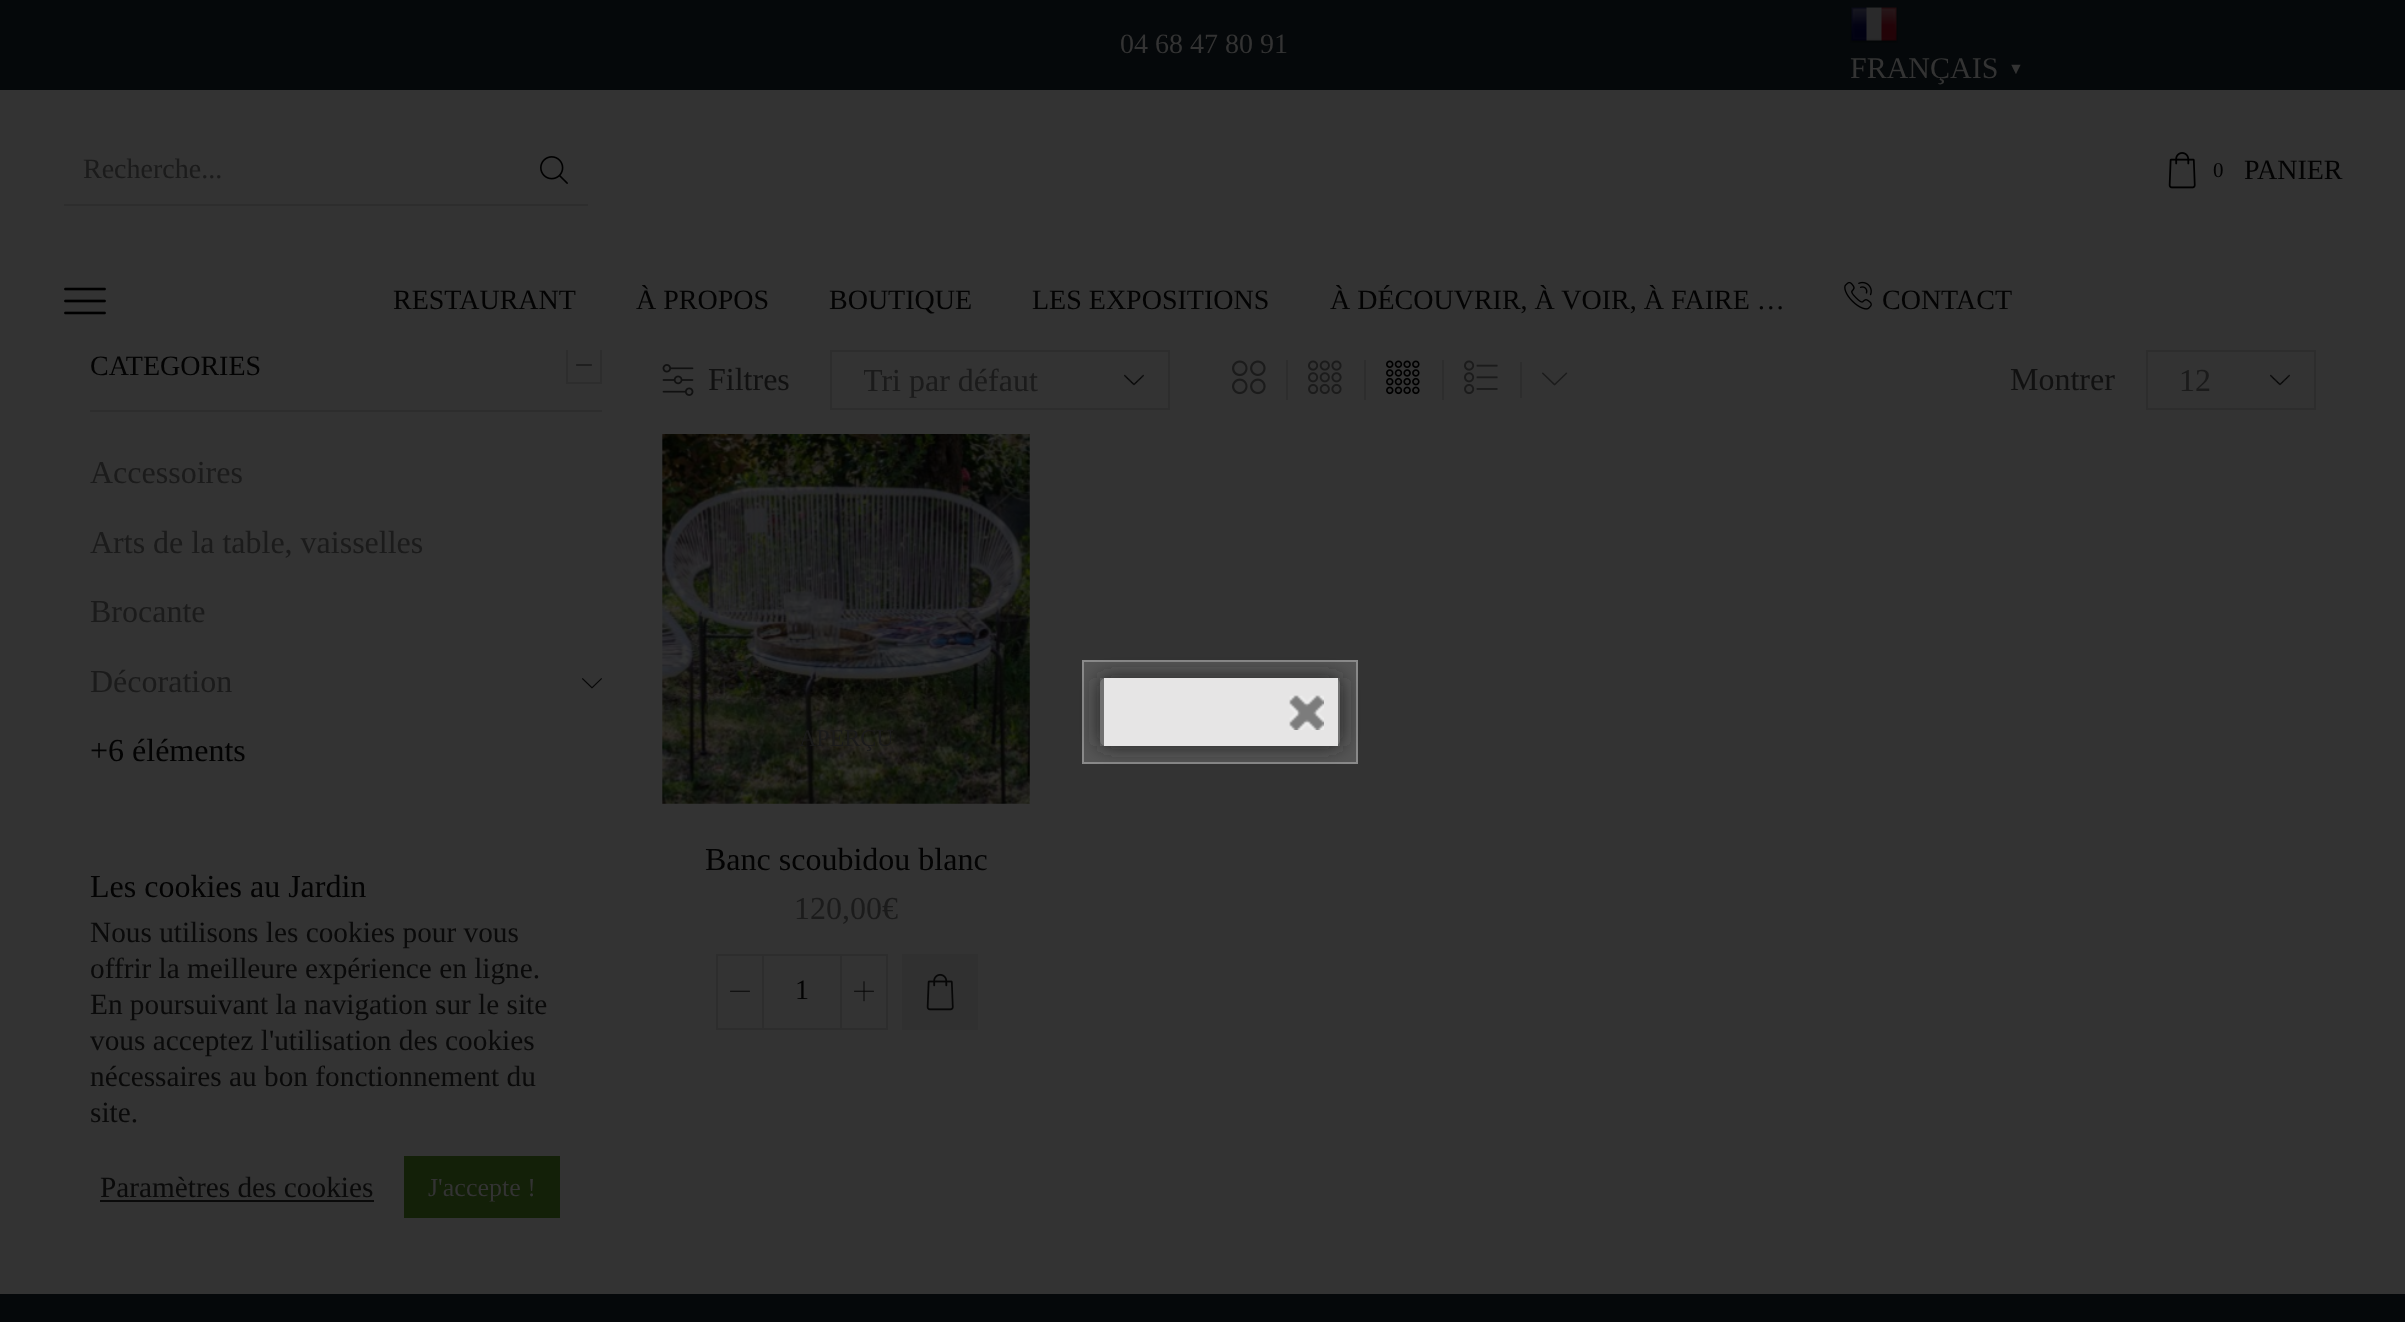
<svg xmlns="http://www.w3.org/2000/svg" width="2405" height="1322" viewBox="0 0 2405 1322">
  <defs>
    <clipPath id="clip1"><rect x="864" y="352" width="210" height="56"/></clipPath>
    <clipPath id="clip2"><path d="M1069 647H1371V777H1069ZM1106 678H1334C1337.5 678 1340 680.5 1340 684V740C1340 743.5 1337.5 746 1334 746H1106C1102.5 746 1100 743.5 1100 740V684C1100 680.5 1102.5 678 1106 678Z" clip-rule="evenodd"/></clipPath>
    <filter id="blur1" x="-50%" y="-200%" width="200%" height="500%"><feGaussianBlur stdDeviation="10"/></filter>
  </defs>
  <rect width="100%" height="100%" fill="#333333"/>
  <rect x="0" y="0" width="2405" height="90" fill="#05080a"/>
  <text x="1120" y="53" font-family="Liberation Serif" font-size="28" fill="#333333">04 68 47 80 91</text>
  <image x="1850" y="7" width="48" height="36" href="img1.png"/>
  <text x="1850" y="78" font-family="Liberation Serif" font-size="30" fill="#333333">FRANÇAIS</text>
  <text x="2008" y="74" font-family="Liberation Serif" font-size="16" font-weight="bold" fill="#333333">▼</text>
  <rect x="64" y="204" width="524" height="2" fill="#2d2d2d"/>
  <text x="83" y="178" font-family="Liberation Serif" font-size="28" fill="#1b1b1b">Recherche...</text>
  <image x="540" y="156" width="28" height="28" href="img2.png"/>
  <image x="2168" y="152" width="28" height="37" href="img3.png"/>
  <text x="2213" y="177" font-family="Liberation Serif" font-size="21" fill="#030303">0</text>
  <text x="2244" y="179" font-family="Liberation Serif" font-size="28" fill="#030303">PANIER</text>
  <rect x="567" y="349" width="34" height="34" fill="none" stroke="#2d2d2d" stroke-width="2"/>
  <rect x="566" y="348" width="36" height="2" fill="#333333"/>
  <image x="64" y="287" width="42" height="28" href="img4.png"/>
  <text x="393" y="309" font-family="Liberation Serif" font-size="28" fill="#030303">RESTAURANT</text>
  <text x="636" y="309" font-family="Liberation Serif" font-size="28" fill="#030303">À PROPOS</text>
  <text x="829" y="309" font-family="Liberation Serif" font-size="28" fill="#030303">BOUTIQUE</text>
  <text x="1032" y="309" font-family="Liberation Serif" font-size="28" fill="#030303">LES EXPOSITIONS</text>
  <text x="1330" y="309" font-family="Liberation Serif" font-size="28" fill="#030303">À DÉCOUVRIR, À VOIR, À FAIRE …</text>
  <image x="1844" y="281" width="28" height="29" href="img5.png"/>
  <text x="1882" y="309" font-family="Liberation Serif" font-size="28" fill="#030303">CONTACT</text>
  <rect x="90" y="410" width="512" height="2" fill="#2d2d2d"/>
  <text x="90" y="375" font-family="Liberation Serif" font-size="28" fill="#030303">CATEGORIES</text>
  <image x="576" y="364" width="16" height="2" href="img6.png"/>
  <text x="90" y="483" font-family="Liberation Serif" font-size="32" fill="#1b1b1b">Accessoires</text>
  <text x="90" y="553" font-family="Liberation Serif" font-size="32" fill="#1b1b1b">Arts de la table, vaisselles</text>
  <text x="90" y="622" font-family="Liberation Serif" font-size="32" fill="#1b1b1b">Brocante</text>
  <text x="90" y="692" font-family="Liberation Serif" font-size="32" fill="#1b1b1b">Décoration</text>
  <image x="582" y="678" width="20" height="11" href="img7.png"/>
  <text x="90" y="761" font-family="Liberation Serif" font-size="32" fill="#030303">+6 éléments</text>
  <image x="662" y="364" width="32" height="32" href="img8.png"/>
  <text x="708" y="390" font-family="Liberation Serif" font-size="32" fill="#111111">Filtres</text>
  <image x="1124" y="374" width="20" height="12" href="img9.png"/>
  <rect x="831" y="351" width="338" height="58" fill="none" stroke="#2d2d2d" stroke-width="2"/>
  <g clip-path="url(#clip1)">
    <text x="863" y="391" font-family="Liberation Serif" font-size="32" fill="#1b1b1b">Tri par défaut</text>
  </g>
  <image x="1232" y="360" width="34" height="35" href="img10.png"/>
  <rect x="1286" y="360" width="2" height="40" fill="#2d2d2d"/>
  <image x="1308" y="360" width="34" height="35" href="img11.png"/>
  <rect x="1364" y="360" width="2" height="40" fill="#2d2d2d"/>
  <image x="1386" y="360" width="34" height="35" href="img12.png"/>
  <rect x="1442" y="360" width="2" height="40" fill="#2d2d2d"/>
  <image x="1464" y="360" width="34" height="35" href="img13.png"/>
  <rect x="1520" y="362" width="2" height="36" fill="#2d2d2d"/>
  <image x="1542" y="372" width="26" height="14" href="img14.png"/>
  <text x="2010" y="390" font-family="Liberation Serif" font-size="32" fill="#111111">Montrer</text>
  <image x="2270" y="374" width="20" height="12" href="img9.png"/>
  <rect x="2147" y="351" width="168" height="58" fill="none" stroke="#2d2d2d" stroke-width="2"/>
  <text x="2179" y="391" font-family="Liberation Serif" font-size="32" fill="#1b1b1b">12</text>
  <image x="662" y="434" width="368" height="370" href="img15.png"/>
  <text x="799" y="746" font-family="Liberation Serif" font-size="24" fill="#1b1b1b">APERÇU</text>
  <text x="705" y="870" font-family="Liberation Serif" font-size="32" fill="#030303">Banc scoubidou blanc</text>
  <text x="794" y="919" font-family="Liberation Serif" font-size="32" fill="#1b1b1b">120,00€</text>
  <rect x="717" y="955" width="46" height="74" fill="none" stroke="#2d2d2d" stroke-width="2"/>
  <image x="730" y="990" width="20" height="2" href="img16.png"/>
  <rect x="764" y="954" width="76" height="2" fill="#2d2d2d"/>
  <rect x="764" y="1028" width="76" height="2" fill="#2d2d2d"/>
  <text x="795" y="999" font-family="Liberation Serif" font-size="28" fill="#030303">1</text>
  <rect x="841" y="955" width="46" height="74" fill="none" stroke="#2d2d2d" stroke-width="2"/>
  <image x="854" y="981" width="20" height="21" href="img17.png"/>
  <rect x="902" y="954" width="76" height="76" fill="#303030"/>
  <image x="926" y="973" width="28" height="38" href="img18.png"/>
  <rect x="0" y="1294" width="2405" height="28" fill="#05080a"/>
  <rect x="1092" y="670" width="256" height="84" fill="#707070" stroke="#555555" stroke-width="16"/>
  <rect x="1083" y="661" width="274" height="102" fill="none" stroke="#8a8a8a" stroke-width="2"/>
  <g clip-path="url(#clip2)">
    <rect x="1100" y="678" width="240" height="68" rx="6" fill="#222222" filter="url(#blur1)"/>
  </g>
  <rect x="1104" y="678" width="234" height="68" fill="#e6e5e5"/>
  <image x="1289" y="695" width="35" height="35" href="img19.png"/>
  <text x="90" y="897" font-family="Liberation Serif" font-size="32" fill="#030303">Les cookies au Jardin</text>
  <text x="90" y="942" font-family="Liberation Serif" font-size="29.3" fill="#0a0a0a">Nous utilisons les cookies pour vous</text>
  <text x="90" y="978" font-family="Liberation Serif" font-size="29.3" fill="#0a0a0a">offrir la meilleure expérience en ligne.</text>
  <text x="90" y="1014" font-family="Liberation Serif" font-size="29.3" fill="#0a0a0a">En poursuivant la navigation sur le site</text>
  <text x="90" y="1050" font-family="Liberation Serif" font-size="29.3" fill="#0a0a0a">vous acceptez l'utilisation des cookies</text>
  <text x="90" y="1086" font-family="Liberation Serif" font-size="29.3" fill="#0a0a0a">nécessaires au bon fonctionnement du</text>
  <text x="90" y="1122" font-family="Liberation Serif" font-size="29.3" fill="#0a0a0a">site.</text>
  <text x="100" y="1197" font-family="Liberation Serif" font-size="29.3" fill="#0a0a0a">Paramètres des cookies</text>
  <rect x="100" y="1200" width="274" height="2" fill="#0a0a0a"/>
  <rect x="404" y="1156" width="156" height="62" fill="#132008"/>
  <text x="428" y="1196" font-family="Liberation Serif" font-size="26" fill="#333333">J'accepte !</text>
</svg>
